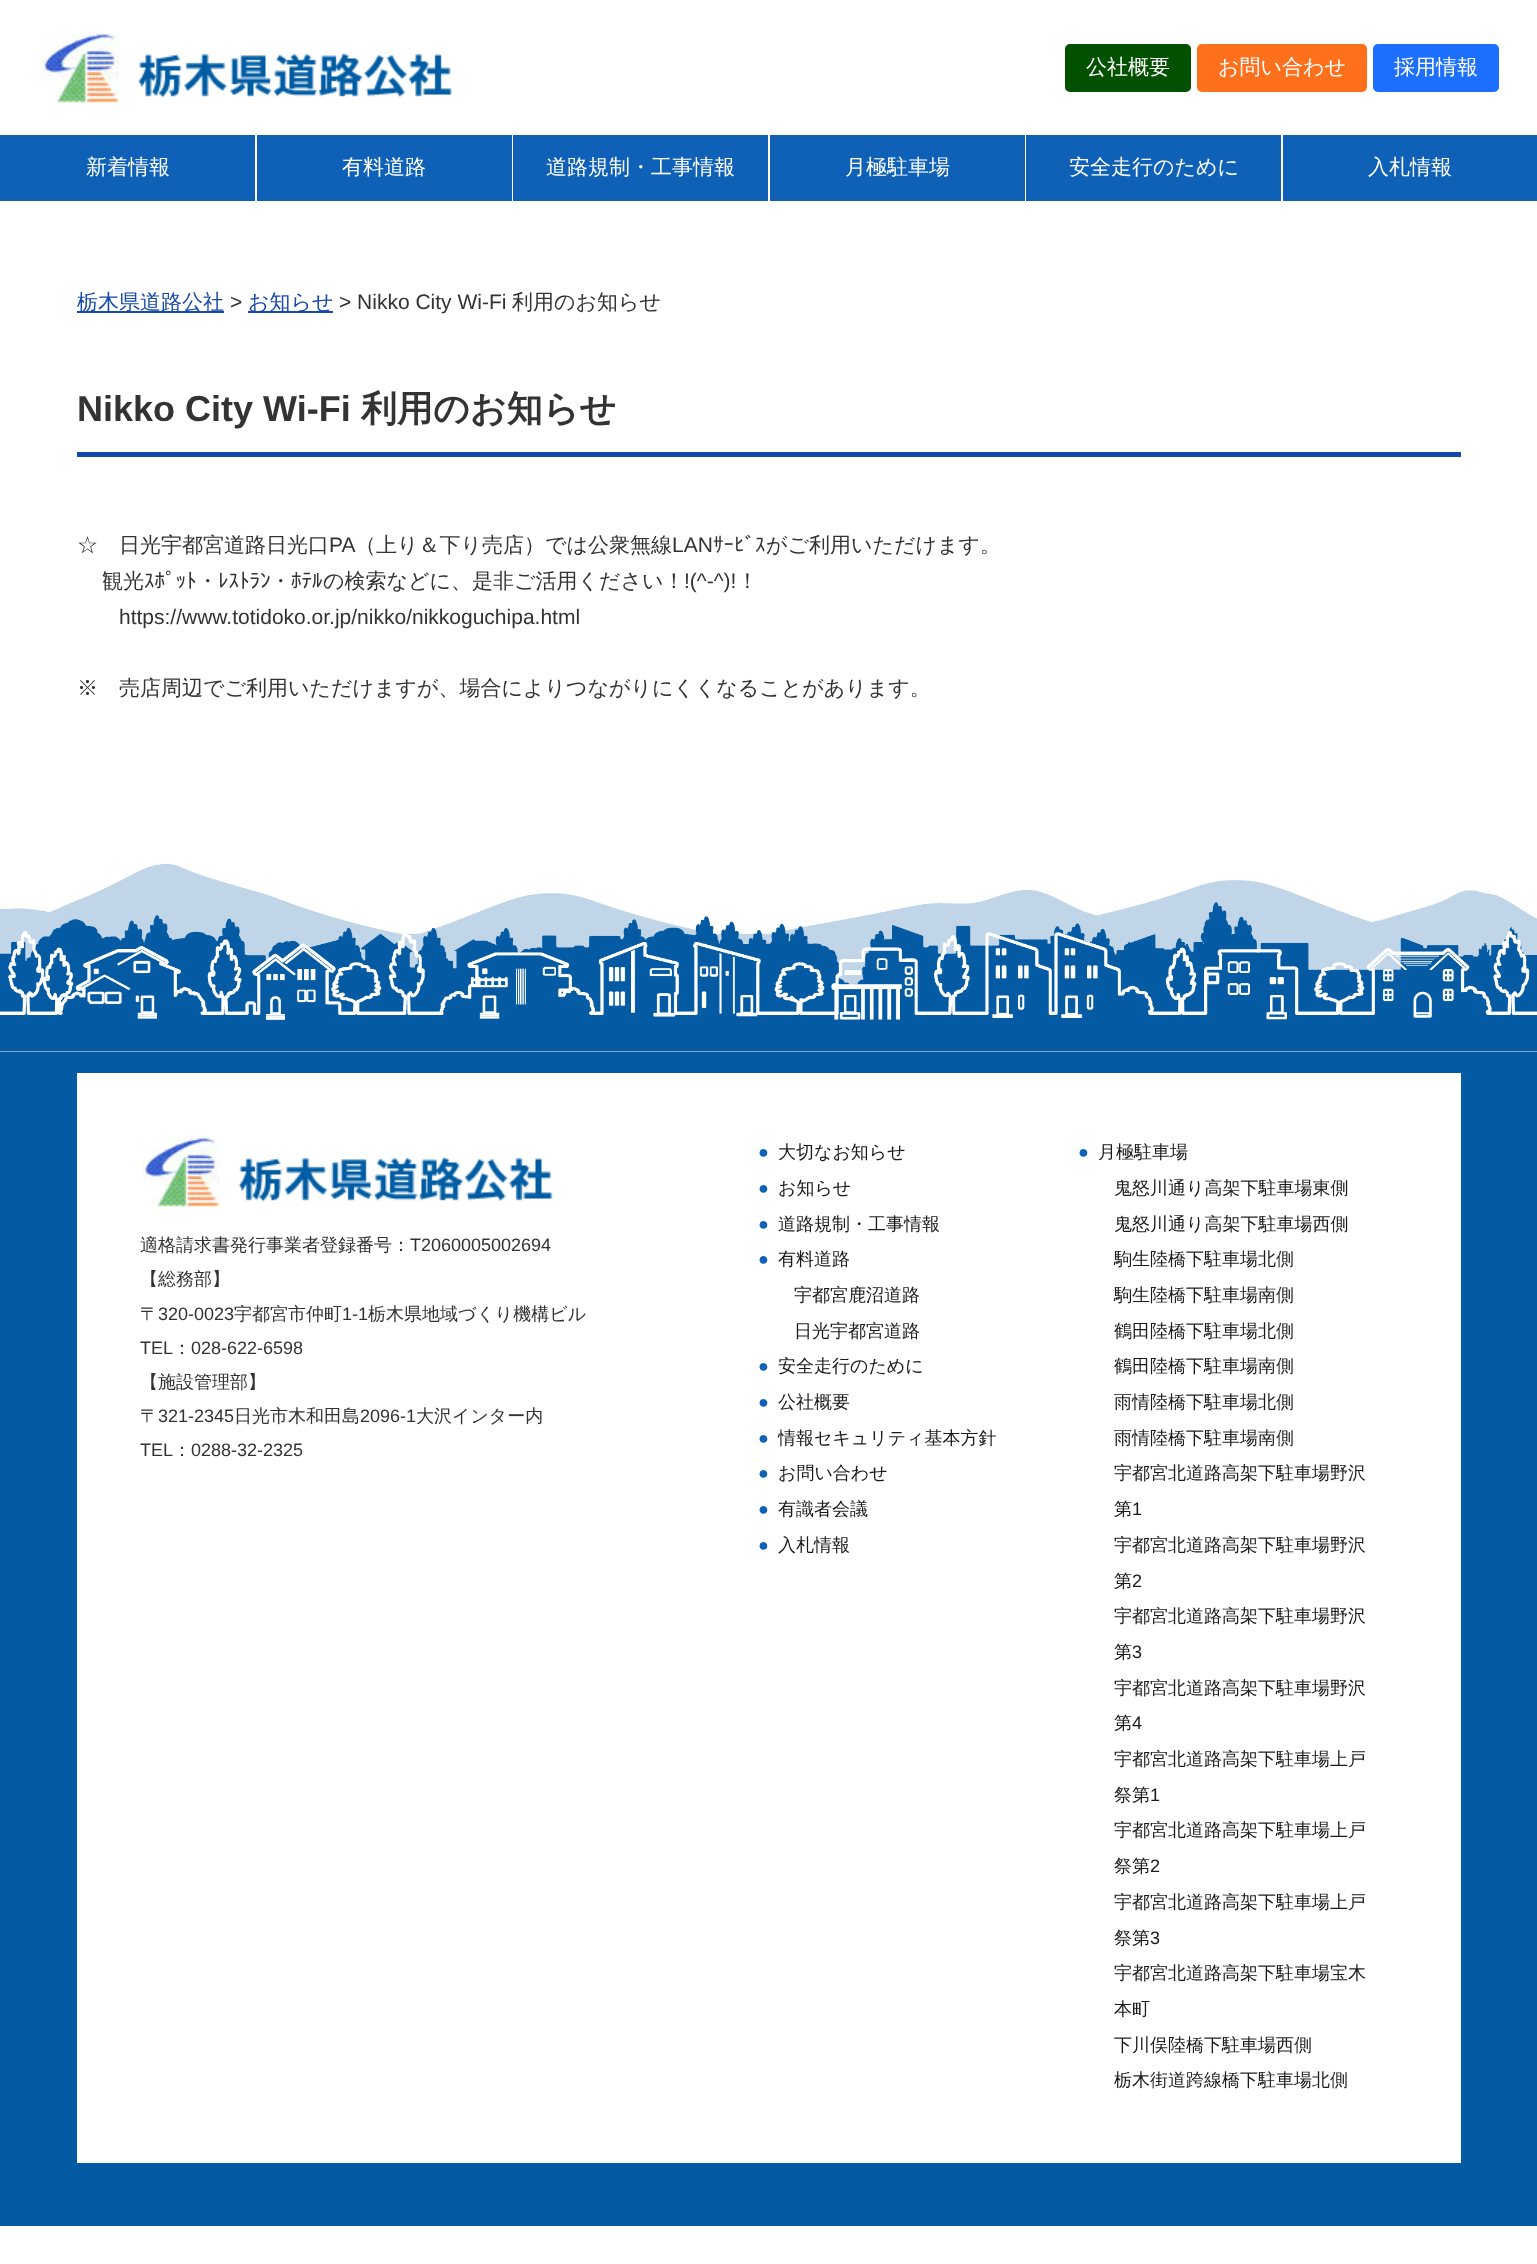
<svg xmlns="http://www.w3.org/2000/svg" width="1537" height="2264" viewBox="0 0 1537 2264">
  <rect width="100%" height="100%" fill="#ffffff"/>
  <image x="39" y="31" width="413" height="73" href="img1.png"/>
  <rect x="1065" y="44" width="126" height="48" rx="5" fill="#015100"/>
  <text x="1086" y="74" font-family="WenQuanYi Zen Hei" font-size="21" font-weight="500" fill="#ffffff">公社概要</text>
  <rect x="1197" y="44" width="170" height="48" rx="5" fill="#ff701d"/>
  <text x="1218" y="74" font-family="WenQuanYi Zen Hei" font-size="21" font-weight="500" fill="#ffffff">お問い合わせ</text>
  <rect x="1373" y="44" width="126" height="48" rx="5" fill="#1d70ff"/>
  <text x="1394" y="74" font-family="WenQuanYi Zen Hei" font-size="21" font-weight="500" fill="#ffffff">採用情報</text>
  <rect x="0" y="135" width="255" height="66" fill="#0f61b8"/>
  <text x="86" y="174" font-family="WenQuanYi Zen Hei" font-size="21" font-weight="500" fill="#ffffff">新着情報</text>
  <rect x="257" y="135" width="255" height="66" fill="#0f61b8"/>
  <text x="342" y="174" font-family="WenQuanYi Zen Hei" font-size="21" font-weight="500" fill="#ffffff">有料道路</text>
  <rect x="513" y="135" width="255" height="66" fill="#0f61b8"/>
  <text x="546" y="174" font-family="WenQuanYi Zen Hei" font-size="21" font-weight="500" fill="#ffffff">道路規制・工事情報</text>
  <rect x="770" y="135" width="255" height="66" fill="#0f61b8"/>
  <text x="845" y="174" font-family="WenQuanYi Zen Hei" font-size="21" font-weight="500" fill="#ffffff">月極駐車場</text>
  <rect x="1026" y="135" width="255" height="66" fill="#0f61b8"/>
  <text x="1069" y="174" font-family="WenQuanYi Zen Hei" font-size="21" font-weight="500" fill="#ffffff">安全走行のために</text>
  <rect x="1283" y="135" width="254" height="66" fill="#0f61b8"/>
  <text x="1368" y="174" font-family="WenQuanYi Zen Hei" font-size="21" font-weight="500" fill="#ffffff">入札情報</text>
  <rect x="77" y="311" width="147" height="2" fill="#1549aa"/>
  <text x="77" y="309" font-family="WenQuanYi Zen Hei" font-size="21" font-weight="500" fill="#1549aa">栃木県道路公社</text>
  <text x="230" y="309" font-family="Liberation Sans" font-size="21" fill="#333333">&gt;</text>
  <rect x="248" y="311" width="85" height="2" fill="#1549aa"/>
  <text x="248" y="309" font-family="WenQuanYi Zen Hei" font-size="21" font-weight="500" fill="#1549aa">お知らせ</text>
  <text x="339" y="309" font-family="Liberation Sans" font-size="21" fill="#333333">&gt; Nikko City Wi-Fi</text>
  <text x="512" y="309" font-family="WenQuanYi Zen Hei" font-size="21" font-weight="500" fill="#333333">利用のお知らせ</text>
  <rect x="77" y="452" width="1384" height="5" fill="#1549aa"/>
  <text x="77" y="421" font-family="Liberation Sans" font-size="36" font-weight="bold" fill="#333333">Nikko City Wi-Fi</text>
  <text x="361" y="421" font-family="WenQuanYi Zen Hei" font-size="36" font-weight="bold" fill="#333333">利用のお知らせ</text>
  <text x="77" y="552" font-family="WenQuanYi Zen Hei" font-size="21" font-weight="500" fill="#333333">☆　日光宇都宮道路日光口</text>
  <text x="329" y="552" font-family="Liberation Sans" font-size="21" fill="#333333">PA</text>
  <text x="355" y="552" font-family="WenQuanYi Zen Hei" font-size="21" font-weight="500" fill="#333333">（上り＆下り売店）では公衆無線</text>
  <text x="672" y="552" font-family="Liberation Sans" font-size="21" fill="#333333">LAN</text>
  <text x="713" y="552" font-family="IPAPGothic" font-size="21" fill="#333333">ｻｰﾋﾞｽ</text>
  <text x="766" y="552" font-family="WenQuanYi Zen Hei" font-size="21" font-weight="500" fill="#333333">がご利用いただけます。</text>
  <text x="102" y="588" font-family="WenQuanYi Zen Hei" font-size="21" font-weight="500" fill="#333333">観光</text>
  <text x="144" y="588" font-family="IPAPGothic" font-size="21" fill="#333333">ｽﾎﾟｯﾄ</text>
  <text x="197" y="588" font-family="WenQuanYi Zen Hei" font-size="21" font-weight="500" fill="#333333">・</text>
  <text x="218" y="588" font-family="IPAPGothic" font-size="21" fill="#333333">ﾚｽﾄﾗﾝ</text>
  <text x="270" y="588" font-family="WenQuanYi Zen Hei" font-size="21" font-weight="500" fill="#333333">・</text>
  <text x="291" y="588" font-family="IPAPGothic" font-size="21" fill="#333333">ﾎﾃﾙ</text>
  <text x="323" y="588" font-family="WenQuanYi Zen Hei" font-size="21" font-weight="500" fill="#333333">の検索などに、是非ご活用ください！</text>
  <text x="684" y="588" font-family="Liberation Sans" font-size="21" fill="#333333">!(^-^)!</text>
  <text x="737" y="588" font-family="WenQuanYi Zen Hei" font-size="21" font-weight="500" fill="#333333">！</text>
  <text x="119" y="624" font-family="Liberation Sans" font-size="21" fill="#333333">https://www.totidoko.or.jp/nikko/nikkoguchipa.html</text>
  <text x="77" y="695" font-family="WenQuanYi Zen Hei" font-size="21" font-weight="500" fill="#333333">※　売店周辺でご利用いただけますが、場合によりつながりにくくなることがあります。</text>
  <image x="0" y="864" width="1537" height="188" href="img2.png"/>
  <rect x="0" y="1052" width="1537" height="1174" fill="#045ba3"/>
  <rect x="77" y="1073" width="1384" height="1090" fill="#ffffff"/>
  <image x="139" y="1135" width="414" height="73" href="img3.png"/>
  <text x="140" y="1251" font-family="WenQuanYi Zen Hei" font-size="18" font-weight="500" fill="#333333">適格請求書発行事業者登録番号：</text>
  <text x="410" y="1251" font-family="Liberation Sans" font-size="18" fill="#333333">T2060005002694</text>
  <text x="140" y="1285" font-family="WenQuanYi Zen Hei" font-size="18" font-weight="500" fill="#333333">【総務部】</text>
  <text x="140" y="1320" font-family="WenQuanYi Zen Hei" font-size="18" font-weight="500" fill="#333333">〒</text>
  <text x="158" y="1320" font-family="Liberation Sans" font-size="18" fill="#333333">320-0023</text>
  <text x="234" y="1320" font-family="WenQuanYi Zen Hei" font-size="18" font-weight="500" fill="#333333">宇都宮市仲町</text>
  <text x="342" y="1320" font-family="Liberation Sans" font-size="18" fill="#333333">1-1</text>
  <text x="368" y="1320" font-family="WenQuanYi Zen Hei" font-size="18" font-weight="500" fill="#333333">栃木県地域づくり機構ビル</text>
  <text x="140" y="1354" font-family="Liberation Sans" font-size="18" fill="#333333">TEL</text>
  <text x="173" y="1354" font-family="WenQuanYi Zen Hei" font-size="18" font-weight="500" fill="#333333">：</text>
  <text x="191" y="1354" font-family="Liberation Sans" font-size="18" fill="#333333">028-622-6598</text>
  <text x="140" y="1388" font-family="WenQuanYi Zen Hei" font-size="18" font-weight="500" fill="#333333">【施設管理部】</text>
  <text x="140" y="1422" font-family="WenQuanYi Zen Hei" font-size="18" font-weight="500" fill="#333333">〒</text>
  <text x="158" y="1422" font-family="Liberation Sans" font-size="18" fill="#333333">321-2345</text>
  <text x="234" y="1422" font-family="WenQuanYi Zen Hei" font-size="18" font-weight="500" fill="#333333">日光市木和田島</text>
  <text x="360" y="1422" font-family="Liberation Sans" font-size="18" fill="#333333">2096-1</text>
  <text x="416" y="1422" font-family="WenQuanYi Zen Hei" font-size="18" font-weight="500" fill="#333333">大沢インター内</text>
  <text x="140" y="1456" font-family="Liberation Sans" font-size="18" fill="#333333">TEL</text>
  <text x="173" y="1456" font-family="WenQuanYi Zen Hei" font-size="18" font-weight="500" fill="#333333">：</text>
  <text x="191" y="1456" font-family="Liberation Sans" font-size="18" fill="#333333">0288-32-2325</text>
  <text x="758" y="1158" font-family="Liberation Sans" font-size="18" fill="#0f61b8">●</text>
  <text x="778" y="1158" font-family="WenQuanYi Zen Hei" font-size="18" font-weight="500" fill="#1a1a1a">大切なお知らせ</text>
  <text x="758" y="1194" font-family="Liberation Sans" font-size="18" fill="#0f61b8">●</text>
  <text x="778" y="1194" font-family="WenQuanYi Zen Hei" font-size="18" font-weight="500" fill="#1a1a1a">お知らせ</text>
  <text x="758" y="1230" font-family="Liberation Sans" font-size="18" fill="#0f61b8">●</text>
  <text x="778" y="1230" font-family="WenQuanYi Zen Hei" font-size="18" font-weight="500" fill="#1a1a1a">道路規制・工事情報</text>
  <text x="758" y="1265" font-family="Liberation Sans" font-size="18" fill="#0f61b8">●</text>
  <text x="778" y="1265" font-family="WenQuanYi Zen Hei" font-size="18" font-weight="500" fill="#1a1a1a">有料道路</text>
  <text x="794" y="1301" font-family="WenQuanYi Zen Hei" font-size="18" font-weight="500" fill="#1a1a1a">宇都宮鹿沼道路</text>
  <text x="794" y="1337" font-family="WenQuanYi Zen Hei" font-size="18" font-weight="500" fill="#1a1a1a">日光宇都宮道路</text>
  <text x="758" y="1372" font-family="Liberation Sans" font-size="18" fill="#0f61b8">●</text>
  <text x="778" y="1372" font-family="WenQuanYi Zen Hei" font-size="18" font-weight="500" fill="#1a1a1a">安全走行のために</text>
  <text x="758" y="1408" font-family="Liberation Sans" font-size="18" fill="#0f61b8">●</text>
  <text x="778" y="1408" font-family="WenQuanYi Zen Hei" font-size="18" font-weight="500" fill="#1a1a1a">公社概要</text>
  <text x="758" y="1444" font-family="Liberation Sans" font-size="18" fill="#0f61b8">●</text>
  <text x="778" y="1444" font-family="WenQuanYi Zen Hei" font-size="18" font-weight="500" fill="#1a1a1a">情報セキュリティ基本方針</text>
  <text x="758" y="1479" font-family="Liberation Sans" font-size="18" fill="#0f61b8">●</text>
  <text x="778" y="1479" font-family="WenQuanYi Zen Hei" font-size="18" font-weight="500" fill="#1a1a1a">お問い合わせ</text>
  <text x="758" y="1515" font-family="Liberation Sans" font-size="18" fill="#0f61b8">●</text>
  <text x="778" y="1515" font-family="WenQuanYi Zen Hei" font-size="18" font-weight="500" fill="#1a1a1a">有識者会議</text>
  <text x="758" y="1551" font-family="Liberation Sans" font-size="18" fill="#0f61b8">●</text>
  <text x="778" y="1551" font-family="WenQuanYi Zen Hei" font-size="18" font-weight="500" fill="#1a1a1a">入札情報</text>
  <text x="1078" y="1158" font-family="Liberation Sans" font-size="18" fill="#0f61b8">●</text>
  <text x="1098" y="1158" font-family="WenQuanYi Zen Hei" font-size="18" font-weight="500" fill="#1a1a1a">月極駐車場</text>
  <text x="1114" y="1194" font-family="WenQuanYi Zen Hei" font-size="18" font-weight="500" fill="#1a1a1a">鬼怒川通り高架下駐車場東側</text>
  <text x="1114" y="1230" font-family="WenQuanYi Zen Hei" font-size="18" font-weight="500" fill="#1a1a1a">鬼怒川通り高架下駐車場西側</text>
  <text x="1114" y="1265" font-family="WenQuanYi Zen Hei" font-size="18" font-weight="500" fill="#1a1a1a">駒生陸橋下駐車場北側</text>
  <text x="1114" y="1301" font-family="WenQuanYi Zen Hei" font-size="18" font-weight="500" fill="#1a1a1a">駒生陸橋下駐車場南側</text>
  <text x="1114" y="1337" font-family="WenQuanYi Zen Hei" font-size="18" font-weight="500" fill="#1a1a1a">鶴田陸橋下駐車場北側</text>
  <text x="1114" y="1372" font-family="WenQuanYi Zen Hei" font-size="18" font-weight="500" fill="#1a1a1a">鶴田陸橋下駐車場南側</text>
  <text x="1114" y="1408" font-family="WenQuanYi Zen Hei" font-size="18" font-weight="500" fill="#1a1a1a">雨情陸橋下駐車場北側</text>
  <text x="1114" y="1444" font-family="WenQuanYi Zen Hei" font-size="18" font-weight="500" fill="#1a1a1a">雨情陸橋下駐車場南側</text>
  <text x="1114" y="1479" font-family="WenQuanYi Zen Hei" font-size="18" font-weight="500" fill="#1a1a1a">宇都宮北道路高架下駐車場野沢</text>
  <text x="1114" y="1515" font-family="WenQuanYi Zen Hei" font-size="18" font-weight="500" fill="#1a1a1a">第</text>
  <text x="1132" y="1515" font-family="Liberation Sans" font-size="18" fill="#1a1a1a">1</text>
  <text x="1114" y="1551" font-family="WenQuanYi Zen Hei" font-size="18" font-weight="500" fill="#1a1a1a">宇都宮北道路高架下駐車場野沢</text>
  <text x="1114" y="1587" font-family="WenQuanYi Zen Hei" font-size="18" font-weight="500" fill="#1a1a1a">第</text>
  <text x="1132" y="1587" font-family="Liberation Sans" font-size="18" fill="#1a1a1a">2</text>
  <text x="1114" y="1622" font-family="WenQuanYi Zen Hei" font-size="18" font-weight="500" fill="#1a1a1a">宇都宮北道路高架下駐車場野沢</text>
  <text x="1114" y="1658" font-family="WenQuanYi Zen Hei" font-size="18" font-weight="500" fill="#1a1a1a">第</text>
  <text x="1132" y="1658" font-family="Liberation Sans" font-size="18" fill="#1a1a1a">3</text>
  <text x="1114" y="1694" font-family="WenQuanYi Zen Hei" font-size="18" font-weight="500" fill="#1a1a1a">宇都宮北道路高架下駐車場野沢</text>
  <text x="1114" y="1729" font-family="WenQuanYi Zen Hei" font-size="18" font-weight="500" fill="#1a1a1a">第</text>
  <text x="1132" y="1729" font-family="Liberation Sans" font-size="18" fill="#1a1a1a">4</text>
  <text x="1114" y="1765" font-family="WenQuanYi Zen Hei" font-size="18" font-weight="500" fill="#1a1a1a">宇都宮北道路高架下駐車場上戸</text>
  <text x="1114" y="1801" font-family="WenQuanYi Zen Hei" font-size="18" font-weight="500" fill="#1a1a1a">祭第</text>
  <text x="1150" y="1801" font-family="Liberation Sans" font-size="18" fill="#1a1a1a">1</text>
  <text x="1114" y="1836" font-family="WenQuanYi Zen Hei" font-size="18" font-weight="500" fill="#1a1a1a">宇都宮北道路高架下駐車場上戸</text>
  <text x="1114" y="1872" font-family="WenQuanYi Zen Hei" font-size="18" font-weight="500" fill="#1a1a1a">祭第</text>
  <text x="1150" y="1872" font-family="Liberation Sans" font-size="18" fill="#1a1a1a">2</text>
  <text x="1114" y="1908" font-family="WenQuanYi Zen Hei" font-size="18" font-weight="500" fill="#1a1a1a">宇都宮北道路高架下駐車場上戸</text>
  <text x="1114" y="1944" font-family="WenQuanYi Zen Hei" font-size="18" font-weight="500" fill="#1a1a1a">祭第</text>
  <text x="1150" y="1944" font-family="Liberation Sans" font-size="18" fill="#1a1a1a">3</text>
  <text x="1114" y="1979" font-family="WenQuanYi Zen Hei" font-size="18" font-weight="500" fill="#1a1a1a">宇都宮北道路高架下駐車場宝木</text>
  <text x="1114" y="2015" font-family="WenQuanYi Zen Hei" font-size="18" font-weight="500" fill="#1a1a1a">本町</text>
  <text x="1114" y="2051" font-family="WenQuanYi Zen Hei" font-size="18" font-weight="500" fill="#1a1a1a">下川俣陸橋下駐車場西側</text>
  <text x="1114" y="2086" font-family="WenQuanYi Zen Hei" font-size="18" font-weight="500" fill="#1a1a1a">栃木街道跨線橋下駐車場北側</text>
</svg>
